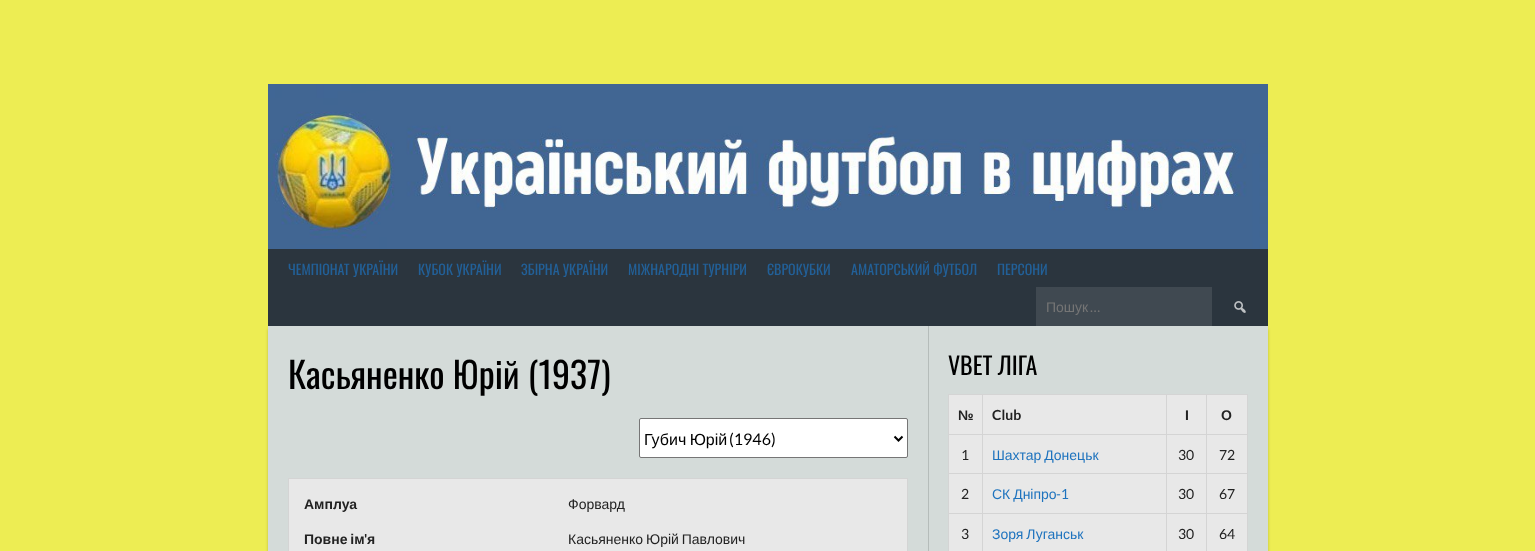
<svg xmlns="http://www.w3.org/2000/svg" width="1535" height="551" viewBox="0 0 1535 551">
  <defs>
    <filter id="blur1" x="-50%" y="-200%" width="200%" height="500%"><feGaussianBlur stdDeviation="1.5"/></filter>
  </defs>
  <rect width="100%" height="100%" fill="#eded53"/>
  <image x="268" y="84" width="1000" height="165" href="img1.png"/>
  <rect x="268" y="329" width="1000" height="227" fill="#000000" fill-opacity="0.2" filter="url(#blur1)"/>
  <rect x="268" y="249" width="1000" height="77" fill="#2b353e"/>
  <text x="288" y="275" font-family="Oswald" font-size="14" fill="#226098">ЧЕМПІОНАТ УКРАЇНИ</text>
  <text x="418" y="275" font-family="Oswald" font-size="14" fill="#226098">КУБОК УКРАЇНИ</text>
  <text x="521" y="275" font-family="Oswald" font-size="14" fill="#226098">ЗБІРНА УКРАЇНИ</text>
  <text x="628" y="275" font-family="Oswald" font-size="14" fill="#226098">МІЖНАРОДНІ ТУРНІРИ</text>
  <text x="767" y="275" font-family="Oswald" font-size="14" fill="#226098">ЄВРОКУБКИ</text>
  <text x="851" y="275" font-family="Oswald" font-size="14" fill="#226098">АМАТОРСЬКИЙ ФУТБОЛ</text>
  <text x="997" y="275" font-family="Oswald" font-size="14" fill="#226098">ПЕРСОНИ</text>
  <rect x="1036" y="287" width="176" height="39" fill="#404951"/>
  <text x="1046" y="312" font-family="Liberation Sans" font-size="14" fill="#757575">Пошук</text>
  <text x="1090" y="312" font-family="Lato" font-size="14" fill="#757575">…</text>
  <image x="1234" y="301" width="12" height="12" href="img2.png"/>
  <rect x="268" y="326" width="1000" height="225" fill="#d4dbd9"/>
  <rect x="928" y="326" width="1" height="225" fill="#b5bcba"/>
  <text x="288" y="389" font-family="Oswald" font-size="36" fill="#000000">Касьяненко Юрій (1937)</text>
  <rect x="639.5" y="418.5" width="268" height="39" rx="1.5" fill="#ffffff" stroke="#767676"/>
  <path d="M894.5 436.5L898.5 440.5L902.5 436.5" fill="none" stroke="#000000" stroke-width="2"/>
  <text x="644" y="445" word-spacing="-1" font-family="Liberation Sans" font-size="16" fill="#000000">Губич Юрій</text>
  <text x="729" y="445" font-family="Lato" font-size="16" fill="#000000">(1946)</text>
  <rect x="288.5" y="478.5" width="619" height="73" fill="#e8e8e8" stroke="#d4d4d4"/>
  <text x="304" y="509" font-family="Liberation Sans" font-size="14" font-weight="bold" fill="#222222">Амплуа</text>
  <text x="568" y="509" font-family="Liberation Sans" font-size="14" fill="#222222">Форвард</text>
  <text x="304" y="544" word-spacing="-1" font-family="Liberation Sans" font-size="14" font-weight="bold" fill="#222222">Повне ім</text>
  <text x="364" y="544" font-family="Lato" font-size="14" font-weight="bold" fill="#222222">'</text>
  <text x="367" y="544" font-family="Liberation Sans" font-size="14" font-weight="bold" fill="#222222">я</text>
  <text x="568" y="544" word-spacing="-1" font-family="Liberation Sans" font-size="14" fill="#222222">Касьяненко Юрій Павлович</text>
  <text x="948" y="375" font-family="Oswald" font-size="24" fill="#000000">VBET ЛІГА</text>
  <rect x="949" y="395" width="298" height="156" fill="#e8e8e8"/>
  <rect x="948" y="394" width="300" height="1" fill="#d4d4d4"/>
  <rect x="1247" y="394" width="1" height="157" fill="#d4d4d4"/>
  <rect x="948" y="394" width="1" height="157" fill="#d4d4d4"/>
  <text x="958" y="420" font-family="Liberation Sans" font-size="14" font-weight="bold" fill="#222222">№</text>
  <rect x="1206" y="434" width="42" height="1" fill="#d4d4d4"/>
  <rect x="1206" y="473" width="42" height="1" fill="#d4d4d4"/>
  <rect x="1206" y="513" width="42" height="1" fill="#d4d4d4"/>
  <rect x="1206" y="513" width="1" height="38" fill="#d4d4d4"/>
  <rect x="1166" y="513" width="41" height="1" fill="#d4d4d4"/>
  <rect x="1206" y="473" width="1" height="41" fill="#d4d4d4"/>
  <rect x="1166" y="473" width="41" height="1" fill="#d4d4d4"/>
  <rect x="1206" y="434" width="1" height="40" fill="#d4d4d4"/>
  <rect x="1166" y="434" width="41" height="1" fill="#d4d4d4"/>
  <rect x="1166" y="513" width="1" height="38" fill="#d4d4d4"/>
  <rect x="982" y="513" width="185" height="1" fill="#d4d4d4"/>
  <rect x="1166" y="473" width="1" height="41" fill="#d4d4d4"/>
  <rect x="982" y="473" width="185" height="1" fill="#d4d4d4"/>
  <rect x="1166" y="434" width="1" height="40" fill="#d4d4d4"/>
  <rect x="982" y="434" width="185" height="1" fill="#d4d4d4"/>
  <rect x="982" y="513" width="1" height="38" fill="#d4d4d4"/>
  <rect x="948" y="513" width="35" height="1" fill="#d4d4d4"/>
  <rect x="982" y="473" width="1" height="41" fill="#d4d4d4"/>
  <rect x="948" y="473" width="35" height="1" fill="#d4d4d4"/>
  <rect x="982" y="434" width="1" height="40" fill="#d4d4d4"/>
  <rect x="948" y="434" width="35" height="1" fill="#d4d4d4"/>
  <rect x="982" y="394" width="1" height="41" fill="#d4d4d4"/>
  <text x="992" y="420" font-family="Lato" font-size="14" font-weight="bold" fill="#222222">Club</text>
  <rect x="1166" y="394" width="1" height="41" fill="#d4d4d4"/>
  <text x="1185" y="420" font-family="Liberation Sans" font-size="14" font-weight="bold" fill="#222222">І</text>
  <rect x="1206" y="394" width="1" height="41" fill="#d4d4d4"/>
  <text x="1221" y="420" font-family="Liberation Sans" font-size="14" font-weight="bold" fill="#222222">О</text>
  <text x="961" y="460" font-family="Lato" font-size="14" fill="#222222">1</text>
  <text x="992" y="460" word-spacing="-1" font-family="Liberation Sans" font-size="14" fill="#1e73be">Шахтар Донецьк</text>
  <text x="1178" y="460" font-family="Lato" font-size="14" fill="#222222">30</text>
  <text x="1219" y="460" font-family="Lato" font-size="14" fill="#222222">72</text>
  <text x="961" y="499" font-family="Lato" font-size="14" fill="#222222">2</text>
  <text x="992" y="499" word-spacing="-1" font-family="Liberation Sans" font-size="14" fill="#1e73be">СК Дніпро</text>
  <text x="1056" y="499" font-family="Lato" font-size="14" fill="#1e73be">-1</text>
  <text x="1178" y="499" font-family="Lato" font-size="14" fill="#222222">30</text>
  <text x="1219" y="499" font-family="Lato" font-size="14" fill="#222222">67</text>
  <text x="961" y="539" font-family="Lato" font-size="14" fill="#222222">3</text>
  <text x="992" y="539" word-spacing="-1" font-family="Liberation Sans" font-size="14" fill="#1e73be">Зоря Луганськ</text>
  <text x="1178" y="539" font-family="Lato" font-size="14" fill="#222222">30</text>
  <text x="1219" y="539" font-family="Lato" font-size="14" fill="#222222">64</text>
</svg>
